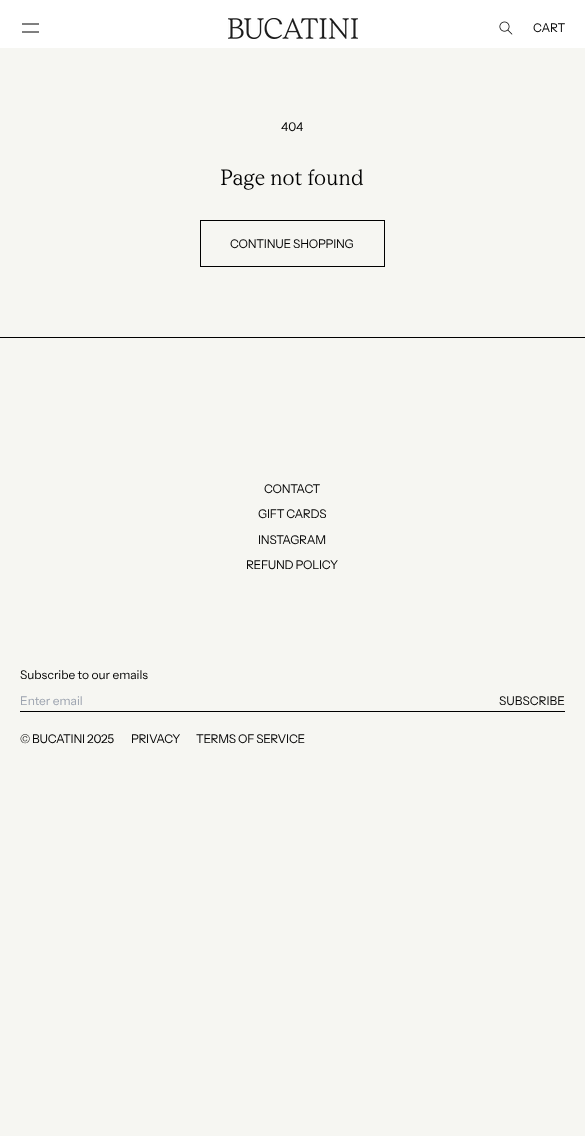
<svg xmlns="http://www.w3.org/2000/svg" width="585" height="1136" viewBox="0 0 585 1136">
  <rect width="100%" height="100%" fill="#f6f6f2"/>
  <rect x="0" y="0" width="585" height="48" fill="#ffffff"/>
  <path d="M22 24H39M22 32H39" fill="none" stroke="#000000"/>
  <image x="228" y="18" width="130" height="21" href="img1.png"/>
  <image x="499" y="21" width="14" height="14" href="img2.png"/>
  <text x="533" y="32" font-family="Instrument Sans" font-size="12" fill="#000000">CART</text>
  <text x="281" y="131" font-family="Instrument Sans" font-size="12" fill="#000000">404</text>
  <text x="220" y="185" font-family="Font" font-size="22" font-weight="300" letter-spacing="-0.25" fill="#000000">Page not found</text>
  <rect x="200.5" y="220.5" width="184" height="46" fill="none" stroke="#000000"/>
  <text x="230" y="248" font-family="Instrument Sans" font-size="12" letter-spacing="-0.25" fill="#000000">CONTINUE SHOPPING</text>
  <rect x="0" y="337" width="585" height="1" fill="#000000"/>
  <text x="264" y="493" font-family="Instrument Sans" font-size="12" letter-spacing="-0.25" fill="#000000">CONTACT</text>
  <text x="258" y="518" font-family="Instrument Sans" font-size="12" letter-spacing="-0.25" fill="#000000">GIFT CARDS</text>
  <text x="258" y="544" font-family="Instrument Sans" font-size="12" letter-spacing="-0.25" fill="#000000">INSTAGRAM</text>
  <text x="246" y="569" font-family="Instrument Sans" font-size="12" letter-spacing="-0.25" fill="#000000">REFUND POLICY</text>
  <text x="20" y="679" font-family="Instrument Sans" font-size="12" fill="#000000">Subscribe to our emails</text>
  <rect x="20" y="711" width="545" height="1" fill="#000000"/>
  <text x="20" y="705" font-family="Instrument Sans" font-size="12" fill="#9ca3af">Enter email</text>
  <text x="499" y="705" font-family="Instrument Sans" font-size="12" fill="#000000">SUBSCRIBE</text>
  <text x="20" y="743" font-family="Instrument Sans" font-size="12" letter-spacing="-0.25" fill="#000000">© BUCATINI 2025</text>
  <text x="131" y="743" font-family="Instrument Sans" font-size="12" letter-spacing="-0.25" fill="#000000">PRIVACY</text>
  <text x="196" y="743" font-family="Instrument Sans" font-size="12" letter-spacing="-0.25" fill="#000000">TERMS OF SERVICE</text>
</svg>
